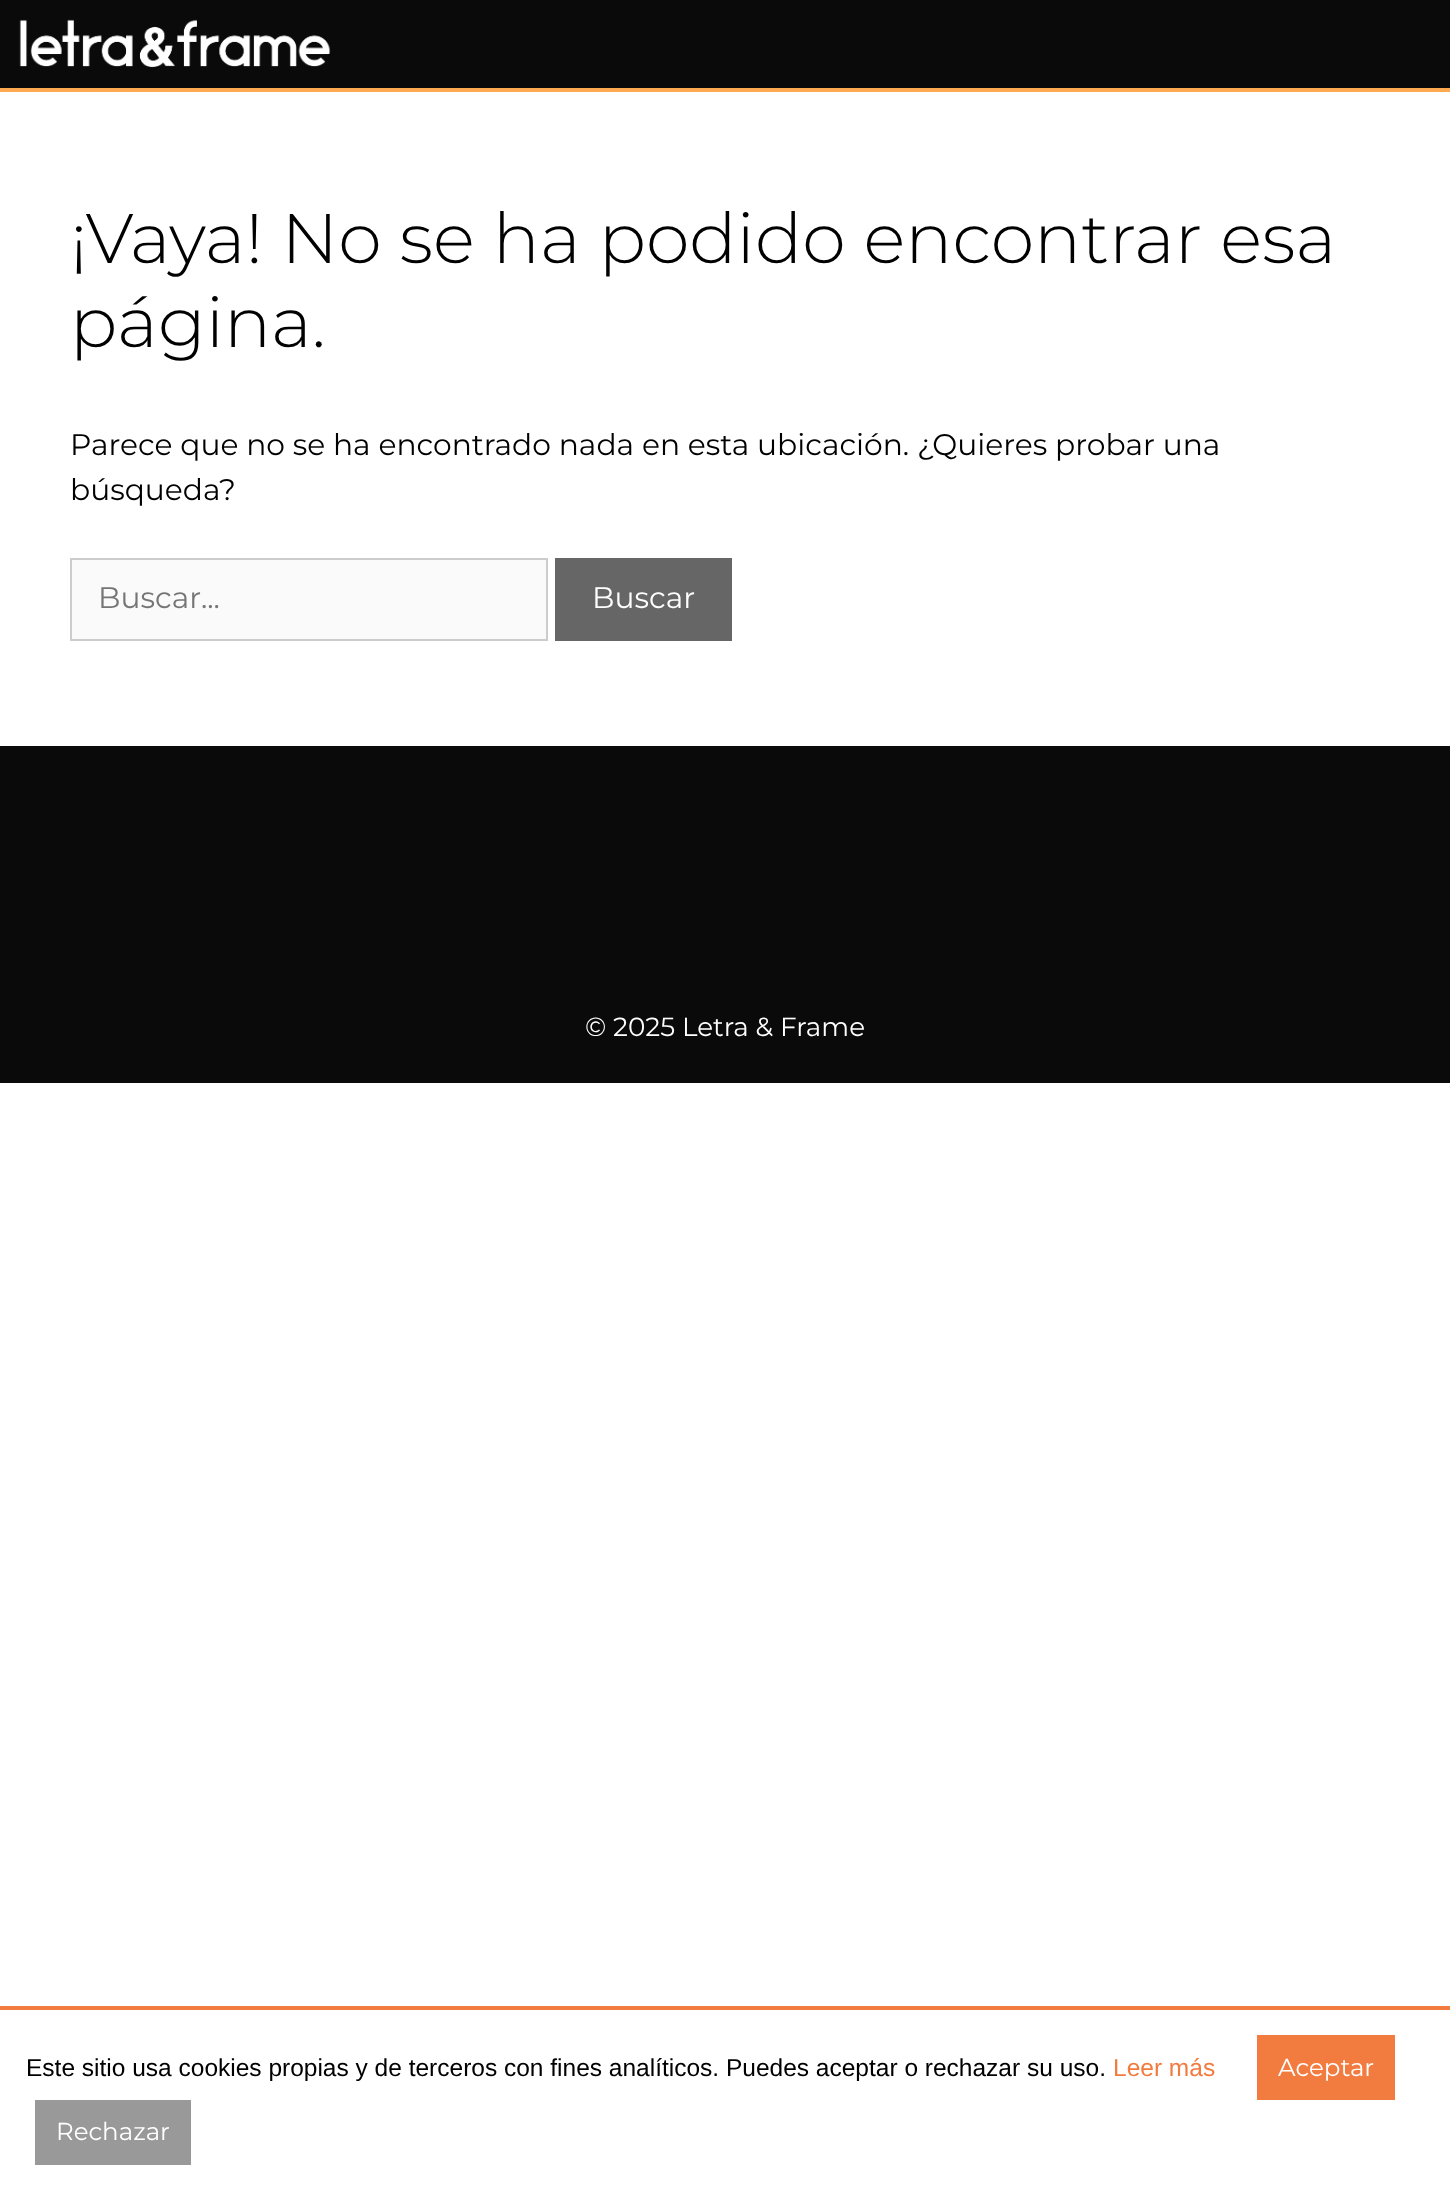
<svg xmlns="http://www.w3.org/2000/svg" width="1450" height="2191" viewBox="0 0 1450 2191">
  <rect width="100%" height="100%" fill="#ffffff"/>
  <rect x="0" y="0" width="1450" height="88" fill="#0a0a0a"/>
  <rect x="0" y="88" width="1450" height="4" fill="#ffaa51"/>
  <image x="19" y="19" width="312" height="49" href="img1.png"/>
  <text x="70" y="263" font-family="Montserrat" font-size="70" font-weight="300" fill="#000000">¡Vaya! No se ha podido encontrar esa</text>
  <text x="70" y="347" font-family="Montserrat" font-size="70" font-weight="300" fill="#000000">página.</text>
  <text x="70" y="455" font-family="Montserrat" font-size="29.75" fill="#000000">Parece que no se ha encontrado nada en esta ubicación. ¿Quieres probar una</text>
  <text x="70" y="500" font-family="Montserrat" font-size="29.75" fill="#000000">búsqueda?</text>
  <rect x="71" y="559" width="476" height="81" fill="#fafafa" stroke="#cccccc" stroke-width="2"/>
  <text x="98" y="608" font-family="Montserrat" font-size="29.75" fill="#757575">Buscar...</text>
  <rect x="555" y="558" width="177" height="83" fill="#666666"/>
  <text x="592" y="608" font-family="Montserrat" font-size="29.75" fill="#ffffff">Buscar</text>
  <rect x="0" y="746" width="1450" height="337" fill="#0a0a0a"/>
  <text x="585" y="1036" font-family="Montserrat" font-size="26.25" fill="#ffffff">© 2025 Letra &amp; Frame</text>
  <rect x="0" y="2006" width="1450" height="4" fill="#f27b40"/>
  <text x="26" y="2076" font-family="Liberation Sans" font-size="24.5" fill="#000000">Este sitio usa cookies propias y de terceros con fines analíticos. Puedes aceptar o rechazar su uso.</text>
  <text x="1113" y="2076" font-family="Liberation Sans" font-size="24.5" fill="#f27b40">Leer más</text>
  <rect x="1257" y="2035" width="138" height="65" fill="#f27b40"/>
  <text x="1278" y="2076" font-family="Montserrat" font-size="24.5" fill="#ffffff">Aceptar</text>
  <rect x="35" y="2100" width="156" height="65" fill="#999999"/>
  <text x="56" y="2140" font-family="Montserrat" font-size="24.5" fill="#ffffff">Rechazar</text>
</svg>
